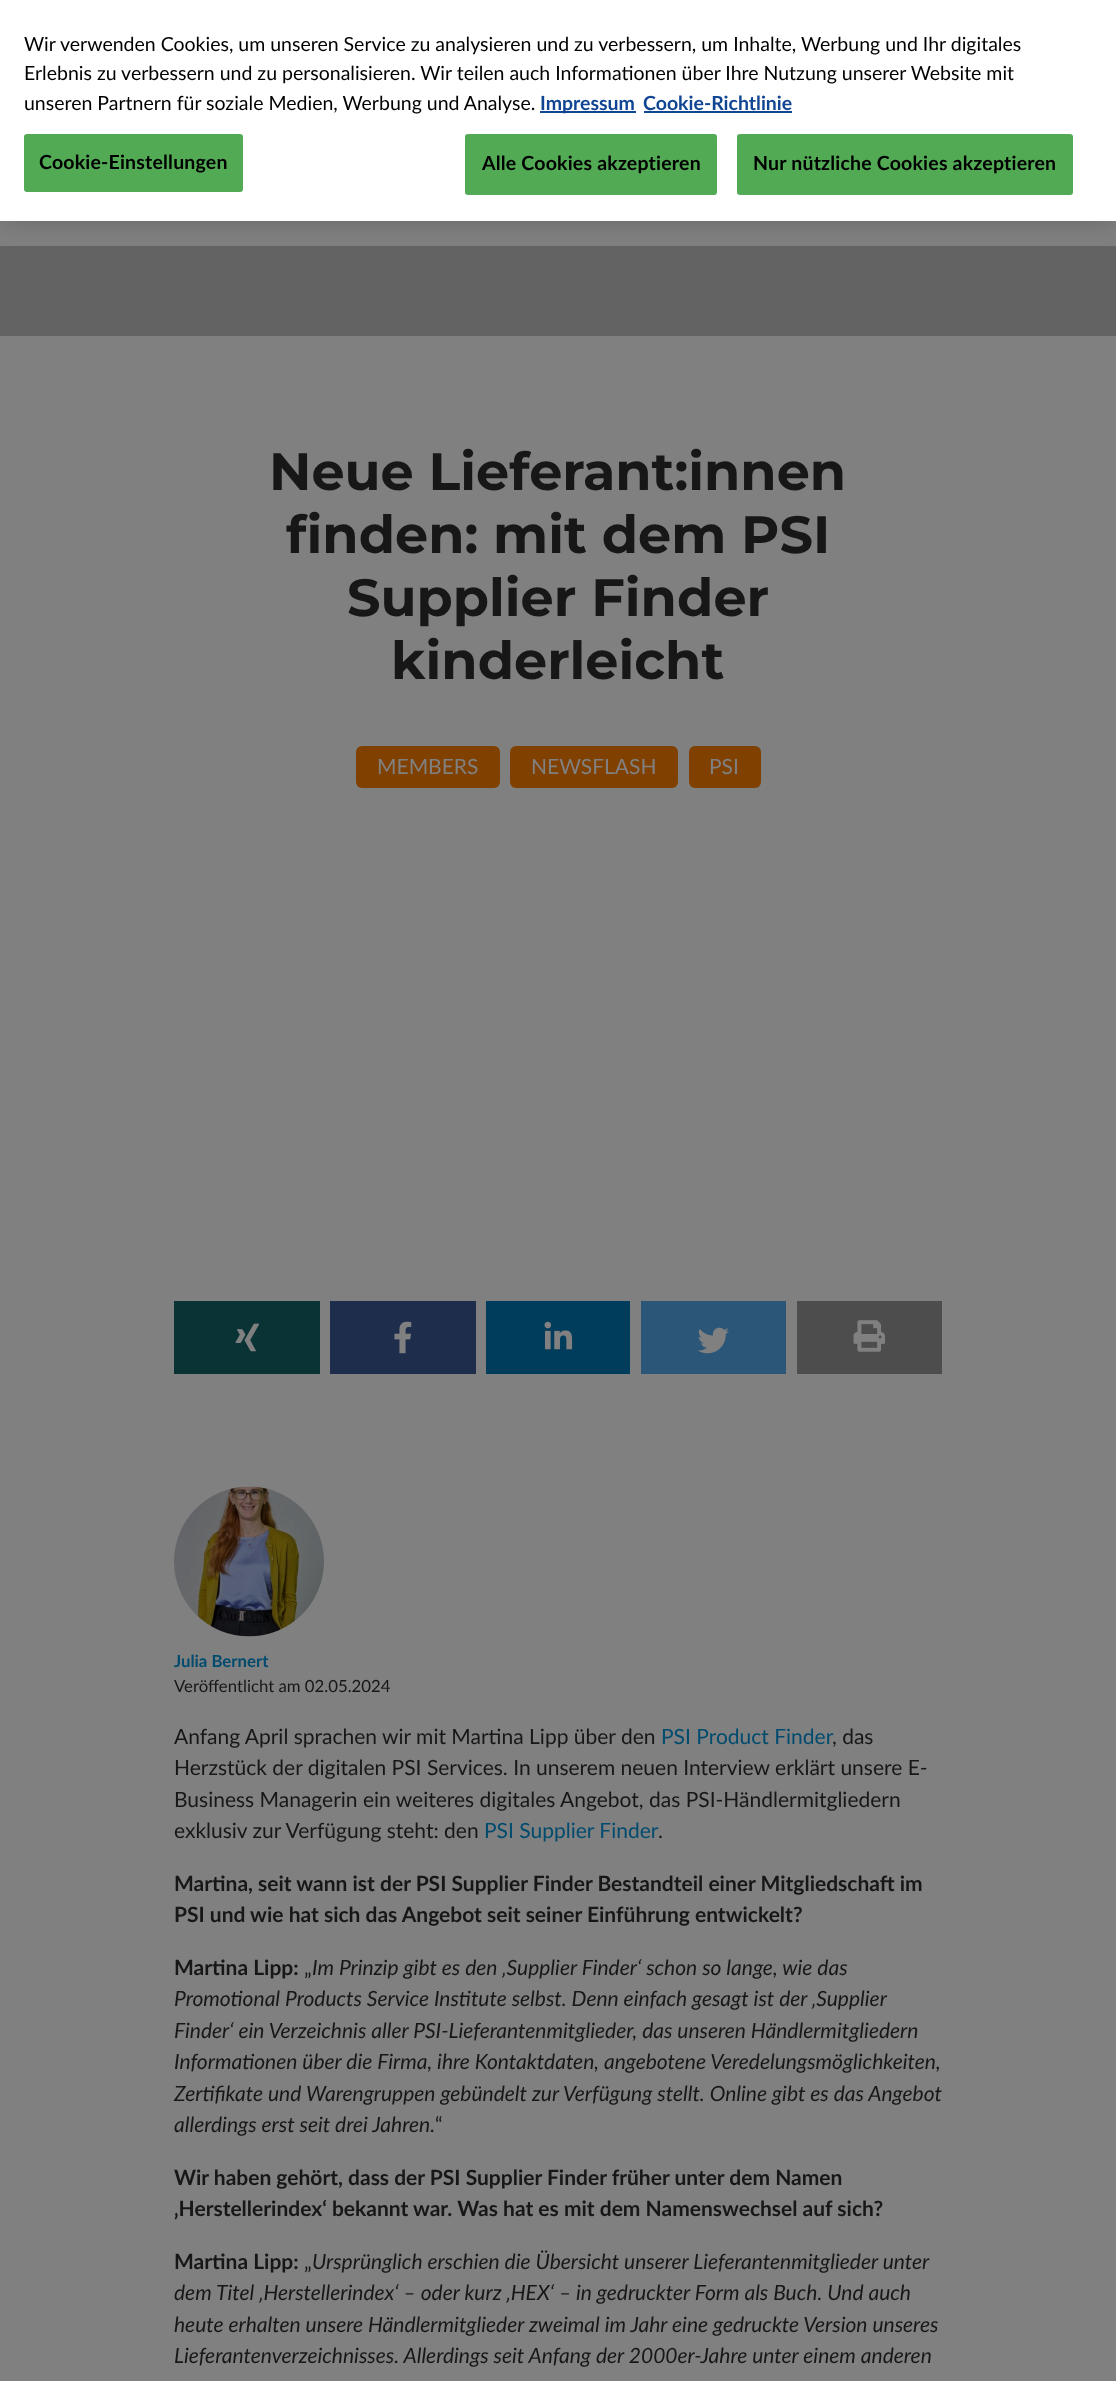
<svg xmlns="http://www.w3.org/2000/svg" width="1116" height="2381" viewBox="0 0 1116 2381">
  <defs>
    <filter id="blur1" x="-50%" y="-200%" width="200%" height="500%"><feGaussianBlur stdDeviation="13.5"/></filter>
  </defs>
  <rect width="100%" height="100%" fill="#808080"/>
  <rect x="0" y="246" width="1116" height="90" fill="#636363"/>
  <rect x="0" y="0" width="1116" height="221" fill="#000000" fill-opacity="0.2" filter="url(#blur1)"/>
  <rect x="0" y="0" width="1116" height="221" fill="#ffffff"/>
  <text x="24" y="51" font-family="Lato" font-size="19.5" fill="#000000">Wir verwenden Cookies, um unseren Service zu analysieren und zu verbessern, um Inhalte, Werbung und Ihr digitales</text>
  <text x="24" y="80" font-family="Lato" font-size="19.5" fill="#000000">Erlebnis zu verbessern und zu personalisieren. Wir teilen auch Informationen über Ihre Nutzung unserer Website mit</text>
  <text x="24" y="110" font-family="Lato" font-size="19.5" fill="#000000">unseren Partnern für soziale Medien, Werbung und Analyse.</text>
  <rect x="540" y="111" width="96" height="2" fill="#104593"/>
  <text x="540" y="110" font-family="Lato" font-size="19.5" font-weight="bold" fill="#104593">Impressum</text>
  <text x="643" y="110" font-family="Lato" font-size="19.5" font-weight="bold" fill="#104593">Cookie-Richtlinie</text>
  <rect x="644" y="111" width="148" height="2" fill="#104593"/>
  <rect x="24" y="134" width="219" height="58" rx="3" fill="#52aa55"/>
  <text x="39" y="169" font-family="Lato" font-size="19.5" font-weight="bold" letter-spacing="0.2" fill="#000000">Cookie-Einstellungen</text>
  <rect x="466" y="135" width="250" height="59" rx="2" fill="#52aa55" stroke="#52aa55" stroke-width="2"/>
  <text x="482" y="170" font-family="Lato" font-size="19.5" font-weight="bold" letter-spacing="0.2" fill="#000000">Alle Cookies akzeptieren</text>
  <rect x="738" y="135" width="334" height="59" rx="2" fill="#52aa55" stroke="#52aa55" stroke-width="2"/>
  <text x="753" y="170" font-family="Lato" font-size="19.5" font-weight="bold" letter-spacing="0.2" fill="#000000">Nur nützliche Cookies akzeptieren</text>
  <text x="269" y="490" font-family="Montserrat" font-size="52.5" font-weight="bold" fill="#171717">Neue Lieferant:innen</text>
  <text x="286" y="553" font-family="Montserrat" font-size="52.5" font-weight="bold" fill="#171717">finden: mit dem PSI</text>
  <text x="347" y="616" font-family="Montserrat" font-size="52.5" font-weight="bold" fill="#171717">Supplier Finder</text>
  <text x="391" y="679" font-family="Montserrat" font-size="52.5" font-weight="bold" fill="#171717">kinderleicht</text>
  <rect x="356" y="746" width="144" height="42" rx="6" fill="#804000"/>
  <text x="377" y="774" font-family="Lato" font-size="21" fill="#808080">MEMBERS</text>
  <rect x="510" y="746" width="168" height="42" rx="6" fill="#804000"/>
  <text x="531" y="774" font-family="Lato" font-size="21" fill="#808080">NEWSFLASH</text>
  <rect x="689" y="746" width="72" height="42" rx="6" fill="#804000"/>
  <text x="709" y="774" font-family="Lato" font-size="21" fill="#808080">PSI</text>
  <rect x="174" y="1301" width="146" height="73" fill="#093334"/>
  <image x="235" y="1323" width="25" height="29" href="img1.png"/>
  <rect x="330" y="1301" width="146" height="73" fill="#1e2d4c"/>
  <image x="394" y="1321" width="18" height="33" href="img2.png"/>
  <rect x="486" y="1301" width="144" height="73" fill="#003c5b"/>
  <image x="544" y="1321" width="29" height="29" href="img3.png"/>
  <rect x="641" y="1301" width="145" height="73" fill="#2b5677"/>
  <image x="697" y="1327" width="32" height="27" href="img4.png"/>
  <rect x="797" y="1301" width="145" height="73" fill="#4d4d4d"/>
  <image x="853" y="1320" width="32" height="32" href="img5.png"/>
  <image x="174" y="1486" width="150" height="151" href="img6.png"/>
  <text x="174" y="1667" font-family="Lato" font-size="16.75" font-weight="bold" fill="#004b6e">Julia Bernert</text>
  <text x="174" y="1692" font-family="Lato" font-size="16.75" fill="#171717">Veröffentlicht am 02.05.2024</text>
  <text x="174" y="1744" font-family="Lato" font-size="21" fill="#171717">Anfang April sprachen wir mit Martina Lipp über den</text>
  <text x="661" y="1744" font-family="Lato" font-size="21" fill="#004b6e">PSI Product Finder</text>
  <text x="832" y="1744" font-family="Lato" font-size="21" fill="#171717">, das</text>
  <text x="174" y="1775" font-family="Lato" font-size="21" fill="#171717">Herzstück der digitalen PSI Services. In unserem neuen Interview erklärt unsere E-</text>
  <text x="174" y="1807" font-family="Lato" font-size="21" fill="#171717">Business Managerin ein weiteres digitales Angebot, das PSI-Händlermitgliedern</text>
  <text x="174" y="1838" font-family="Lato" font-size="21" fill="#171717">exklusiv zur Verfügung steht: den</text>
  <text x="484" y="1838" font-family="Lato" font-size="21" fill="#004b6e">PSI Supplier Finder</text>
  <text x="658" y="1838" font-family="Lato" font-size="21" fill="#171717">.</text>
  <text x="174" y="1891" font-family="Lato" font-size="21" font-weight="bold" fill="#171717">Martina, seit wann ist der PSI Supplier Finder Bestandteil einer Mitgliedschaft im</text>
  <text x="174" y="1922" font-family="Lato" font-size="21" font-weight="bold" fill="#171717">PSI und wie hat sich das Angebot seit seiner Einführung entwickelt?</text>
  <text x="174" y="1975" font-family="Lato" font-size="21" font-weight="bold" fill="#171717">Martina Lipp:</text>
  <text x="304" y="1975" font-family="Lato" font-size="21" fill="#171717">„</text>
  <text x="312" y="1975" font-family="Lato" font-size="21" font-style="italic" fill="#171717">Im Prinzip gibt es den ‚Supplier Finder‘ schon so lange, wie das</text>
  <text x="174" y="2006" font-family="Lato" font-size="21" font-style="italic" fill="#171717">Promotional Products Service Institute selbst. Denn einfach gesagt ist der ‚Supplier</text>
  <text x="174" y="2038" font-family="Lato" font-size="21" font-style="italic" fill="#171717">Finder‘ ein Verzeichnis aller PSI-Lieferantenmitglieder, das unseren Händlermitgliedern</text>
  <text x="174" y="2069" font-family="Lato" font-size="21" font-style="italic" fill="#171717">Informationen über die Firma, ihre Kontaktdaten, angebotene Veredelungsmöglichkeiten,</text>
  <text x="174" y="2101" font-family="Lato" font-size="21" font-style="italic" fill="#171717">Zertifikate und Warengruppen gebündelt zur Verfügung stellt. Online gibt es das Angebot</text>
  <text x="174" y="2132" font-family="Lato" font-size="21" font-style="italic" fill="#171717">allerdings erst seit drei Jahren.</text>
  <text x="435" y="2132" font-family="Lato" font-size="21" fill="#171717">“</text>
  <text x="174" y="2185" font-family="Lato" font-size="21" font-weight="bold" fill="#171717">Wir haben gehört, dass der PSI Supplier Finder früher unter dem Namen</text>
  <text x="174" y="2216" font-family="Lato" font-size="21" font-weight="bold" fill="#171717">‚Herstellerindex‘ bekannt war. Was hat es mit dem Namenswechsel auf sich?</text>
  <text x="174" y="2269" font-family="Lato" font-size="21" font-weight="bold" fill="#171717">Martina Lipp:</text>
  <text x="304" y="2269" font-family="Lato" font-size="21" fill="#171717">„</text>
  <text x="312" y="2269" font-family="Lato" font-size="21" font-style="italic" fill="#171717">Ursprünglich erschien die Übersicht unserer Lieferantenmitglieder unter</text>
  <text x="174" y="2300" font-family="Lato" font-size="21" font-style="italic" fill="#171717">dem Titel ‚Herstellerindex‘ – oder kurz ‚HEX‘ – in gedruckter Form als Buch. Und auch</text>
  <text x="174" y="2332" font-family="Lato" font-size="21" font-style="italic" fill="#171717">heute erhalten unsere Händlermitglieder zweimal im Jahr eine gedruckte Version unseres</text>
  <text x="174" y="2363" font-family="Lato" font-size="21" font-style="italic" fill="#171717">Lieferantenverzeichnisses. Allerdings seit Anfang der 2000er-Jahre unter einem anderen</text>
</svg>
